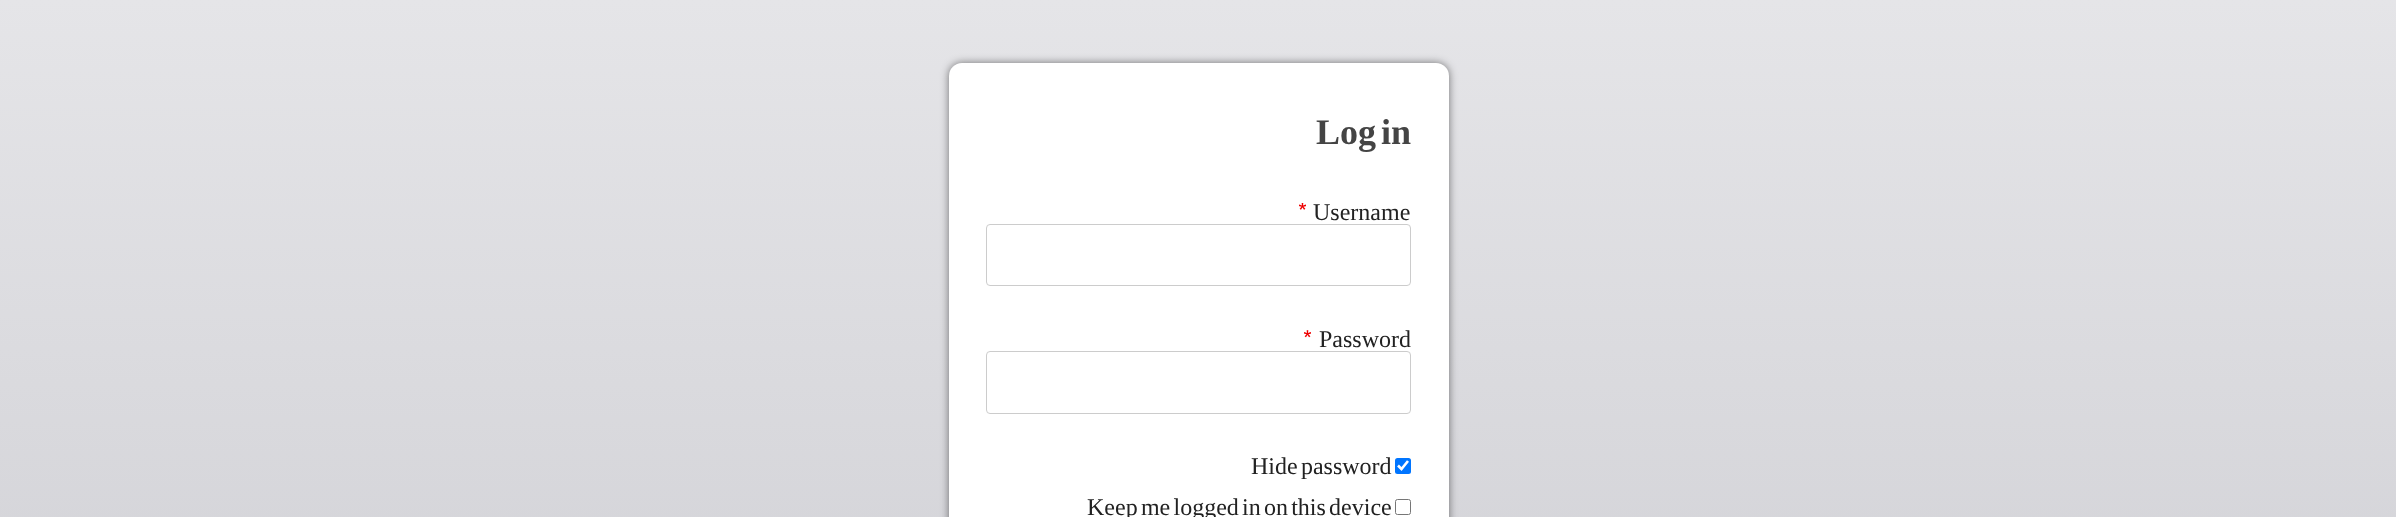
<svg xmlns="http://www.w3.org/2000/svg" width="2396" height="517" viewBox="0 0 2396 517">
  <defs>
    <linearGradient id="g1" gradientUnits="userSpaceOnUse" x1="1198" y1="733" x2="1198" y2="0"><stop offset="0" stop-color="#d0d0d5"/><stop offset="1" stop-color="#e5e5e8"/></linearGradient>
    <filter id="blur1" x="-50%" y="-200%" width="200%" height="500%"><feGaussianBlur stdDeviation="4"/></filter>
  </defs>
  <rect width="100%" height="100%" fill="#ffffff"/>
  <rect x="0" y="0" width="2396" height="517" fill="url(#g1)"/>
  <rect x="949" y="63" width="500" height="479" rx="13" fill="#000000" fill-opacity="0.5" filter="url(#blur1)"/>
  <rect x="949" y="63" width="500" height="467" rx="13" fill="#ffffff"/>
  <text x="1316" y="144" word-spacing="-4" font-family="Liberation Serif" font-size="36" font-weight="bold" fill="#444444">Log in</text>
  <image x="1299" y="203" width="7" height="7" href="img1.png"/>
  <text x="1313" y="220" font-family="Liberation Serif" font-size="24" fill="#222222">Username</text>
  <rect x="986.5" y="224.5" width="424" height="61" rx="3.5" fill="none" stroke="#cccccc"/>
  <image x="1304" y="330" width="7" height="8" href="img2.png"/>
  <text x="1319" y="347" font-family="Liberation Serif" font-size="24" fill="#222222">Password</text>
  <rect x="986.5" y="351.5" width="424" height="62" rx="3.5" fill="none" stroke="#cccccc"/>
  <text x="1251" y="474" word-spacing="-2.75" font-family="Liberation Serif" font-size="24" fill="#222222">Hide password</text>
  <rect x="1395" y="458" width="16" height="16" rx="2.5" fill="#0075ff"/>
  <path d="M1398 465.5L1401.5 469L1408 461" fill="none" stroke="#ffffff" stroke-width="2.6"/>
  <text x="1087" y="515" word-spacing="-2.75" font-family="Liberation Serif" font-size="24" fill="#222222">Keep me logged in on this device</text>
  <rect x="1395.5" y="499.5" width="15" height="15" rx="2" fill="none" stroke="#767676"/>
</svg>
